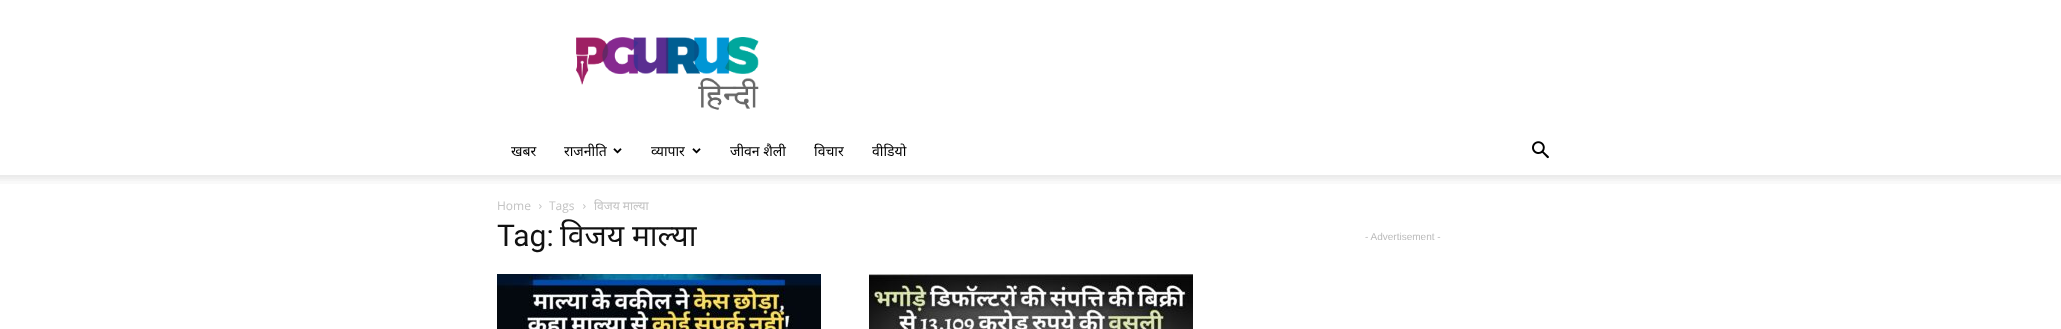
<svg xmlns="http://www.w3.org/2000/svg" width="2061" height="329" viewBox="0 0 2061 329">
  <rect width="100%" height="100%" fill="#ffffff"/>
  <image x="576" y="37" width="183" height="73" href="img1.png"/>
  <text x="511" y="156" font-family="Noto Sans" font-size="14" fill="#000000">खबर</text>
  <text x="564" y="156" font-family="Noto Sans" font-size="14" fill="#000000">राजनीति</text>
  <image x="613" y="148" width="9" height="6" href="img2.png"/>
  <text x="651" y="156" font-family="Noto Sans" font-size="14" fill="#000000">व्यापार</text>
  <image x="692" y="148" width="9" height="6" href="img2.png"/>
  <text x="730" y="156" font-family="Noto Sans" font-size="14" fill="#000000">जीवन शैली</text>
  <text x="814" y="156" font-family="Noto Sans" font-size="14" fill="#000000">विचार</text>
  <text x="872" y="156" font-family="Noto Sans" font-size="14" fill="#000000">वीडियो</text>
  <image x="1532" y="141" width="17" height="18" href="img3.png"/>
  <image x="0" y="175" width="2061" height="9" href="img4.png"/>
  <text x="497" y="210" font-family="Open Sans" font-size="12" fill="#c3c3c3">Home</text>
  <image x="539" y="204" width="3" height="5" href="img5.png"/>
  <text x="549" y="210" font-family="Open Sans" font-size="12" fill="#c3c3c3">Tags</text>
  <image x="583" y="204" width="3" height="5" href="img5.png"/>
  <text x="594" y="210" font-family="Noto Sans" font-size="12" fill="#c3c3c3">विजय माल्या</text>
  <text x="497" y="246" font-family="Roboto" font-size="30" fill="#111111">Tag:</text>
  <text x="560" y="246" font-family="Noto Sans" font-size="30" fill="#111111">विजय माल्या</text>
  <image x="497" y="274" width="324" height="55" href="img6.png"/>
  <image x="869" y="274" width="324" height="55" href="img7.png"/>
  <text x="1365" y="240" font-family="Liberation Sans" font-size="10" fill="#bbbbbb">- Advertisement -</text>
</svg>
